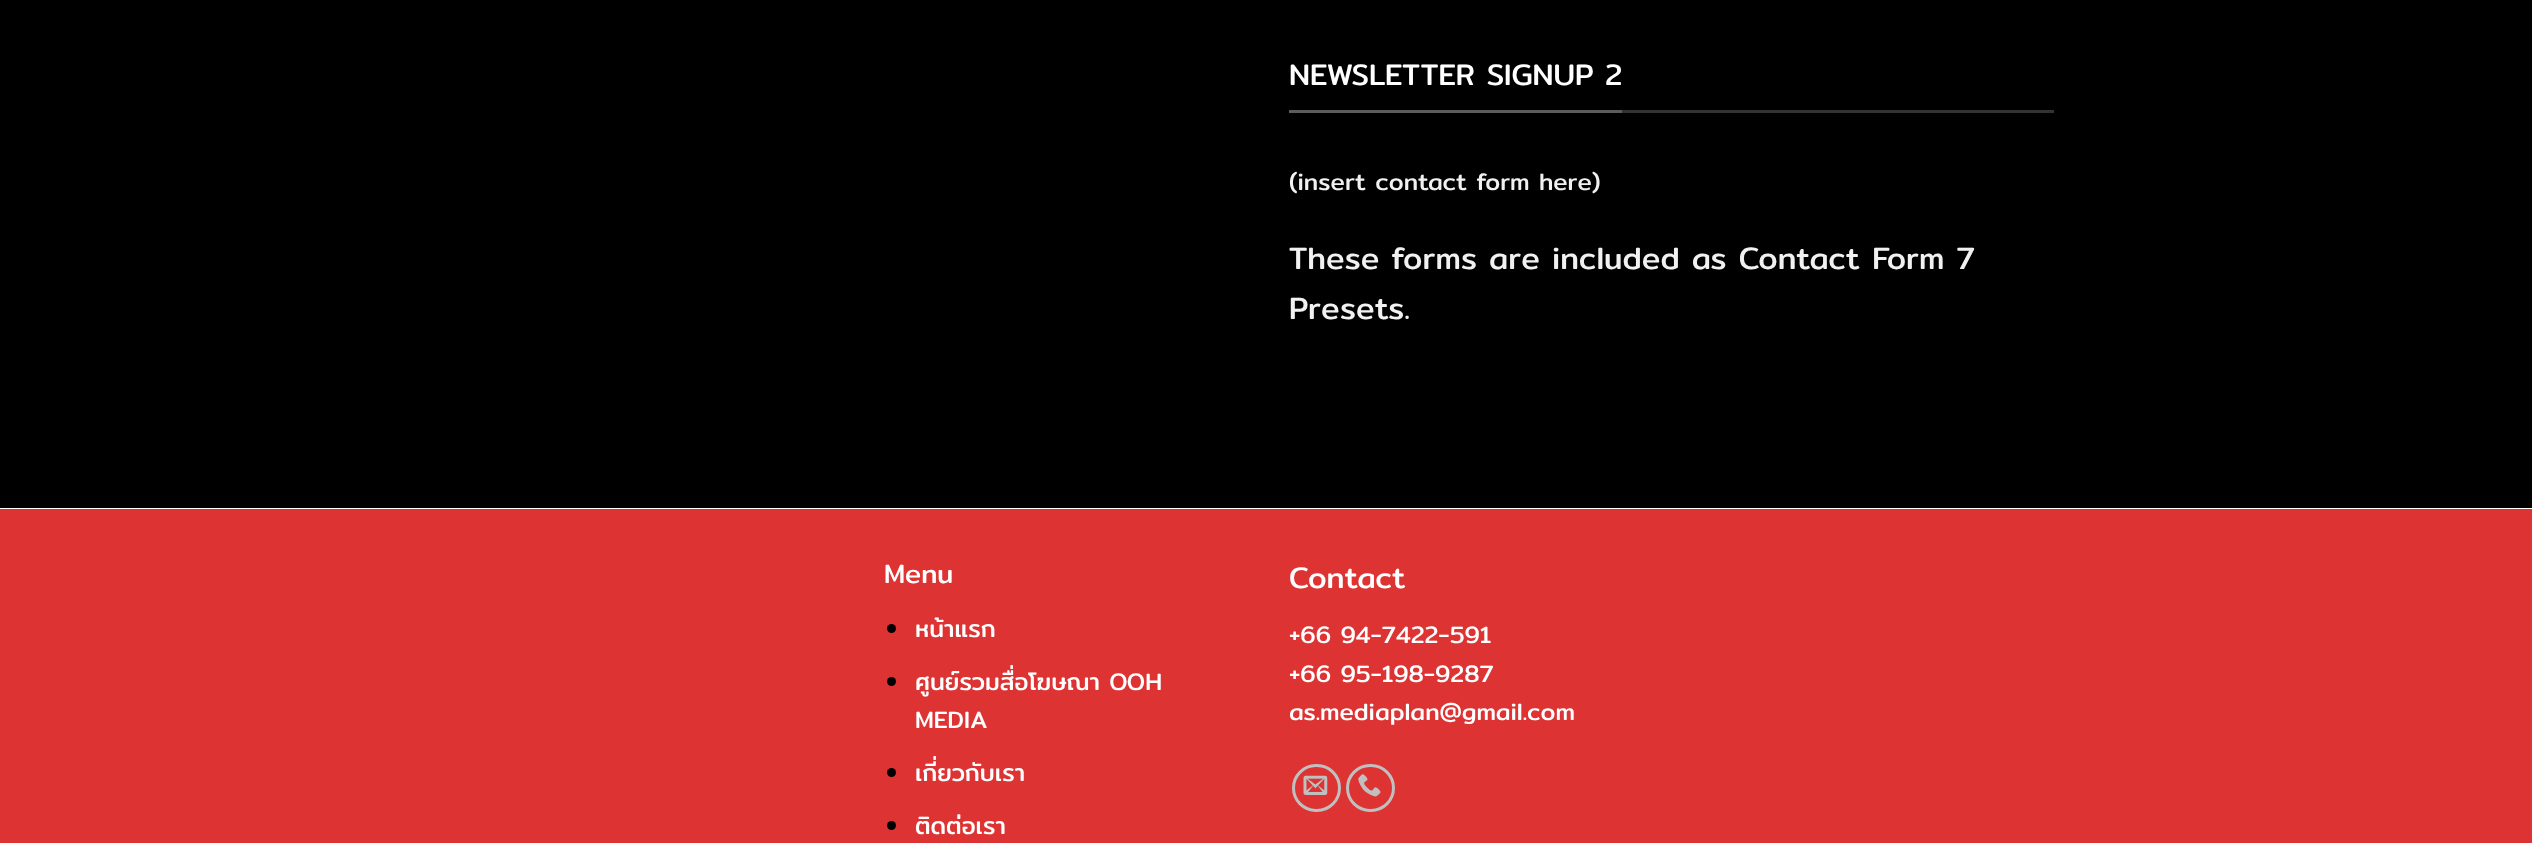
<svg xmlns="http://www.w3.org/2000/svg" width="2532" height="843" viewBox="0 0 2532 843">
  <rect width="100%" height="100%" fill="#ffffff"/>
  <path d="M0-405V508H2532V-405H1311L1266-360L1221-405Z" fill="#000000"/>
  <rect x="1622" y="110" width="432" height="3" fill="#333333"/>
  <rect x="1289" y="110" width="333" height="3" fill="#5c5c5c"/>
  <text x="1289" y="85" font-family="Mitr" font-size="30" fill="#ffffff">NEWSLETTER SIGNUP 2</text>
  <text x="1289" y="190" font-family="Mitr" font-size="24" fill="#f1f1f1">(insert contact form here)</text>
  <text x="1289" y="269" font-family="Mitr" font-size="31.2" fill="#f1f1f1">These forms are included as Contact Form 7</text>
  <text x="1289" y="319" font-family="Mitr" font-size="31.2" fill="#f1f1f1">Presets.</text>
  <rect x="0" y="509" width="2532" height="334" fill="#dd3333"/>
  <text x="884" y="583" font-family="Mitr" font-size="27" fill="#ffffff">Menu</text>
  <circle cx="891.5" cy="628.5" r="4.5" fill="#000000"/>
  <text x="915" y="637" font-family="Mitr" font-size="24" fill="#ffffff">หน้าแรก</text>
  <circle cx="891.5" cy="681.5" r="4.5" fill="#000000"/>
  <text x="915" y="690" font-family="Mitr" font-size="24" fill="#ffffff">ศูนย์รวมสื่อโฆษณา OOH</text>
  <text x="915" y="728" font-family="Mitr" font-size="24" fill="#ffffff">MEDIA</text>
  <circle cx="891.5" cy="772.5" r="4.5" fill="#000000"/>
  <text x="915" y="781" font-family="Mitr" font-size="24" fill="#ffffff">เกี่ยวกับเรา</text>
  <circle cx="891.5" cy="825.5" r="4.5" fill="#000000"/>
  <text x="915" y="834" font-family="Mitr" font-size="24" fill="#ffffff">ติดต่อเรา</text>
  <text x="1289" y="588" font-family="Mitr" font-size="30" fill="#ffffff">Contact</text>
  <text x="1289" y="643" font-family="Mitr" font-size="24" fill="#ffffff">+66 94-7422-591</text>
  <text x="1289" y="682" font-family="Mitr" font-size="24" fill="#ffffff">+66 95-198-9287</text>
  <text x="1289" y="720" font-family="Mitr" font-size="24" fill="#ffffff">as.mediaplan@gmail.com</text>
  <rect x="1293.5" y="765.5" width="46" height="45" rx="22.5" fill="none" stroke="#c0c0c0" stroke-width="3"/>
  <image x="1303" y="775" width="25" height="20" href="img1.png"/>
  <rect x="1347.5" y="765.5" width="46" height="45" rx="22.5" fill="none" stroke="#c0c0c0" stroke-width="3"/>
  <image x="1358" y="774" width="23" height="23" href="img2.png"/>
</svg>
